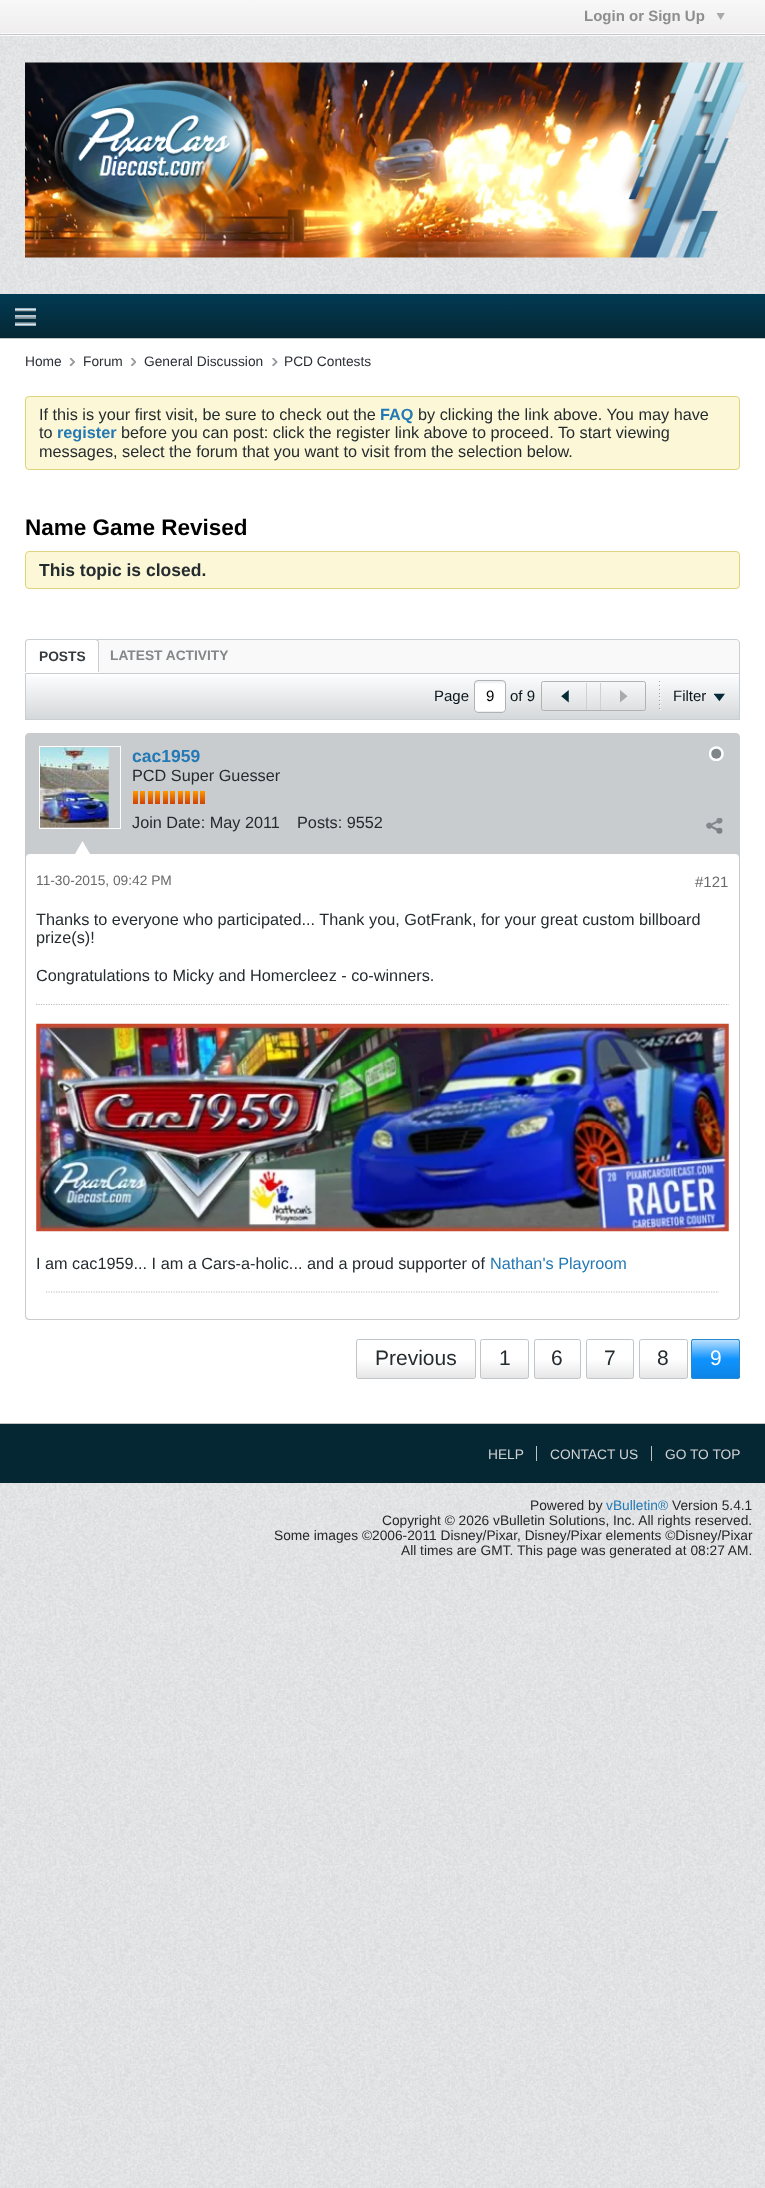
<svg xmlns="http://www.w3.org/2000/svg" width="765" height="2188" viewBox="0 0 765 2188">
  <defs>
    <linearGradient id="g1" gradientUnits="userSpaceOnUse" x1="383" y1="0" x2="383" y2="35"><stop offset="0" stop-color="#f8f8f8"/><stop offset="1" stop-color="#efedee"/></linearGradient>
    <linearGradient id="g2" gradientUnits="userSpaceOnUse" x1="383" y1="294" x2="383" y2="338"><stop offset="0" stop-color="#013a54"/><stop offset="1" stop-color="#052733"/></linearGradient>
    <linearGradient id="g3" gradientUnits="userSpaceOnUse" x1="383" y1="674" x2="383" y2="719"><stop offset="0" stop-color="#fefeff"/><stop offset="1" stop-color="#d5d8da"/></linearGradient>
    <clipPath id="clip1"><rect x="474" y="680" width="32" height="33" rx="4"/></clipPath>
    <linearGradient id="g4" gradientUnits="userSpaceOnUse" x1="490" y1="681" x2="490" y2="711"><stop offset="0.01" stop-color="#edeeef"/><stop offset="0.11" stop-color="#ffffff"/></linearGradient>
    <linearGradient id="g5" gradientUnits="userSpaceOnUse" x1="490" y1="711" x2="490" y2="741"><stop offset="0.01" stop-color="#edeeef"/><stop offset="0.11" stop-color="#ffffff"/></linearGradient>
    <linearGradient id="g6" gradientUnits="userSpaceOnUse" x1="135" y1="791" x2="135" y2="804"><stop offset="0" stop-color="#ff9900"/><stop offset="1" stop-color="#cf4104"/></linearGradient>
    <linearGradient id="g7" gradientUnits="userSpaceOnUse" x1="143" y1="791" x2="143" y2="804"><stop offset="0" stop-color="#ff9900"/><stop offset="1" stop-color="#cf4104"/></linearGradient>
    <linearGradient id="g8" gradientUnits="userSpaceOnUse" x1="150" y1="791" x2="150" y2="804"><stop offset="0" stop-color="#ff9900"/><stop offset="1" stop-color="#cf4104"/></linearGradient>
    <linearGradient id="g9" gradientUnits="userSpaceOnUse" x1="158" y1="791" x2="158" y2="804"><stop offset="0" stop-color="#ff9900"/><stop offset="1" stop-color="#cf4104"/></linearGradient>
    <linearGradient id="g10" gradientUnits="userSpaceOnUse" x1="165" y1="791" x2="165" y2="804"><stop offset="0" stop-color="#ff9900"/><stop offset="1" stop-color="#cf4104"/></linearGradient>
    <linearGradient id="g11" gradientUnits="userSpaceOnUse" x1="173" y1="791" x2="173" y2="804"><stop offset="0" stop-color="#ff9900"/><stop offset="1" stop-color="#cf4104"/></linearGradient>
    <linearGradient id="g12" gradientUnits="userSpaceOnUse" x1="180" y1="791" x2="180" y2="804"><stop offset="0" stop-color="#ff9900"/><stop offset="1" stop-color="#cf4104"/></linearGradient>
    <linearGradient id="g13" gradientUnits="userSpaceOnUse" x1="188" y1="791" x2="188" y2="804"><stop offset="0" stop-color="#ff9900"/><stop offset="1" stop-color="#cf4104"/></linearGradient>
    <linearGradient id="g14" gradientUnits="userSpaceOnUse" x1="195" y1="791" x2="195" y2="804"><stop offset="0" stop-color="#ff9900"/><stop offset="1" stop-color="#cf4104"/></linearGradient>
    <linearGradient id="g15" gradientUnits="userSpaceOnUse" x1="203" y1="791" x2="203" y2="804"><stop offset="0" stop-color="#ff9900"/><stop offset="1" stop-color="#cf4104"/></linearGradient>
    <clipPath id="clip2"><rect x="356" y="1339" width="120" height="40" rx="2.5"/></clipPath>
    <linearGradient id="g16" gradientUnits="userSpaceOnUse" x1="416" y1="1378" x2="416" y2="1340"><stop offset="0" stop-color="#e6e6e6"/><stop offset="0.5" stop-color="#ffffff"/><stop offset="1" stop-color="#ffffff"/></linearGradient>
    <clipPath id="clip3"><rect x="480" y="1339" width="49" height="40" rx="2.5"/></clipPath>
    <linearGradient id="g17" gradientUnits="userSpaceOnUse" x1="504" y1="1378" x2="504" y2="1340"><stop offset="0" stop-color="#e6e6e6"/><stop offset="0.5" stop-color="#ffffff"/><stop offset="1" stop-color="#ffffff"/></linearGradient>
    <clipPath id="clip4"><rect x="534" y="1339" width="47" height="40" rx="2.5"/></clipPath>
    <linearGradient id="g18" gradientUnits="userSpaceOnUse" x1="558" y1="1378" x2="558" y2="1340"><stop offset="0" stop-color="#e6e6e6"/><stop offset="0.5" stop-color="#ffffff"/><stop offset="1" stop-color="#ffffff"/></linearGradient>
    <clipPath id="clip5"><rect x="586" y="1339" width="48" height="40" rx="2.5"/></clipPath>
    <linearGradient id="g19" gradientUnits="userSpaceOnUse" x1="610" y1="1378" x2="610" y2="1340"><stop offset="0" stop-color="#e6e6e6"/><stop offset="0.5" stop-color="#ffffff"/><stop offset="1" stop-color="#ffffff"/></linearGradient>
    <clipPath id="clip6"><rect x="639" y="1339" width="49" height="40" rx="2.5"/></clipPath>
    <linearGradient id="g20" gradientUnits="userSpaceOnUse" x1="663" y1="1378" x2="663" y2="1340"><stop offset="0" stop-color="#e6e6e6"/><stop offset="0.5" stop-color="#ffffff"/><stop offset="1" stop-color="#ffffff"/></linearGradient>
    <linearGradient id="g21" gradientUnits="userSpaceOnUse" x1="716" y1="1378" x2="716" y2="1340"><stop offset="0" stop-color="#000000" stop-opacity="0.1"/><stop offset="0.5" stop-color="#000000" stop-opacity="0"/><stop offset="0.5" stop-color="#ffffff" stop-opacity="0"/><stop offset="1" stop-color="#ffffff" stop-opacity="0.7"/></linearGradient>
  </defs>
  <rect width="100%" height="100%" fill="#ffffff"/>
  <image x="0" y="293" width="765" height="1895" href="img1.png"/>
  <rect x="0" y="0" width="765" height="33" fill="url(#g1)"/>
  <text x="584" y="21" font-family="Liberation Sans" font-size="15" font-weight="bold" fill="#8e8e8e">Login or Sign Up</text>
  <image x="716" y="13" width="9" height="7" href="img2.png"/>
  <rect x="0" y="33" width="765" height="3" fill="#fafafa"/>
  <rect x="0" y="34" width="765" height="1" fill="#c6c7c8"/>
  <image x="0" y="36" width="765" height="258" href="img3.png"/>
  <image x="25" y="62" width="723" height="196" href="img4.png"/>
  <rect x="0" y="294" width="765" height="44" fill="url(#g2)"/>
  <rect x="0" y="338" width="765" height="1" fill="#c4c7c8"/>
  <image x="15" y="308" width="21" height="18" href="img5.png"/>
  <rect x="0" y="339" width="765" height="1084" fill="#ffffff"/>
  <text x="25" y="366" font-family="Liberation Sans" font-size="13.75" fill="#2a2e35">Home</text>
  <image x="69" y="358" width="6" height="8" href="img6.png"/>
  <text x="83" y="366" font-family="Liberation Sans" font-size="13.75" fill="#2a2e35">Forum</text>
  <image x="131" y="358" width="5" height="8" href="img7.png"/>
  <text x="144" y="366" font-family="Liberation Sans" font-size="13.75" fill="#2a2e35">General Discussion</text>
  <image x="272" y="358" width="6" height="8" href="img8.png"/>
  <text x="284" y="366" font-family="Liberation Sans" font-size="13.75" fill="#2a2e35">PCD Contests</text>
  <rect x="25.5" y="396.5" width="714" height="73" rx="3.5" fill="#fcf7d7" stroke="#e1d47e"/>
  <text x="39" y="420" font-family="Liberation Sans" font-size="16.25" fill="#252c2f">If this is your first visit, be sure to check out the</text>
  <text x="380" y="420" font-family="Liberation Sans" font-size="16.25" font-weight="bold" fill="#2379b5">FAQ</text>
  <text x="418" y="420" font-family="Liberation Sans" font-size="16.25" fill="#252c2f">by clicking the link above. You may have</text>
  <text x="39" y="438" font-family="Liberation Sans" font-size="16.25" fill="#252c2f">to</text>
  <text x="57" y="438" font-family="Liberation Sans" font-size="16.25" font-weight="bold" fill="#2379b5">register</text>
  <text x="121" y="438" font-family="Liberation Sans" font-size="16.25" fill="#252c2f">before you can post: click the register link above to proceed. To start viewing</text>
  <text x="39" y="457" font-family="Liberation Sans" font-size="16.25" fill="#252c2f">messages, select the forum that you want to visit from the selection below.</text>
  <text x="25" y="535" font-family="Liberation Sans" font-size="22.5" font-weight="bold" fill="#000000">Name Game Revised</text>
  <rect x="25.5" y="551.5" width="714" height="37" rx="3.5" fill="#fcf7d7" stroke="#e1d47e"/>
  <text x="39" y="576" font-family="Liberation Sans" font-size="17.5" font-weight="bold" fill="#252c2f">This topic is closed.</text>
  <path d="M29 639.5H736C738 639.5 739.5 641 739.5 643V673.5H25.5V643C25.5 641 27 639.5 29 639.5Z" fill="#f9f9f9" stroke="#c9ced2"/>
  <path d="M30 640H239C241 640 243 642 243 644V673H30C28 673 26 671 26 669V644C26 642 28 640 30 640Z" fill="#f9f9f9"/>
  <path d="M29 639H95C97 639 99 641 99 643V673H25V643C25 641 27 639 29 639Z" fill="#ffffff"/>
  <path d="M29 639H95C97 639 99 640 99 642V672H25V642C25 640 27 639 29 639ZM29 640H95C96 640 98 641 98 642V672H26V642C26 641 27 640 29 640Z" fill="#c9ced2" fill-rule="evenodd"/>
  <text x="39" y="661" font-family="Liberation Sans" font-size="13.75" font-weight="bold" fill="#343a3d">POSTS</text>
  <text x="110" y="660" font-family="Liberation Sans" font-size="13.75" font-weight="bold" fill="#838789">LATEST ACTIVITY</text>
  <rect x="26" y="676" width="713" height="43" fill="url(#g3)"/>
  <rect x="25.5" y="673.5" width="714" height="46" fill="none" stroke="#c9ced2"/>
  <text x="434" y="701" font-family="Liberation Sans" font-size="15" fill="#09161b">Page</text>
  <g clip-path="url(#clip1)">
    <rect x="474" y="681" width="32" height="30" fill="url(#g4)"/>
    <rect x="474" y="711" width="32" height="2" fill="url(#g5)"/>
  </g>
  <rect x="474.5" y="680.5" width="31" height="32" rx="3.5" fill="none" stroke="#aeb3b6"/>
  <text x="486" y="701" font-family="Liberation Sans" font-size="15" fill="#000000">9</text>
  <text x="510" y="701" font-family="Liberation Sans" font-size="15" fill="#09161b">of 9</text>
  <rect x="541.5" y="681.5" width="104" height="29" rx="2" fill="none" stroke="#aeb3b6"/>
  <rect x="586" y="683" width="1" height="27" fill="#cdd1d4"/>
  <image x="561" y="690" width="8" height="13" href="img9.png"/>
  <rect x="600" y="683" width="1" height="27" fill="#cdd1d4"/>
  <image x="620" y="690" width="8" height="13" href="img10.png"/>
  <image x="659" y="681" width="1" height="28" href="img11.png"/>
  <image x="660" y="683" width="1" height="27" href="img12.png"/>
  <text x="673" y="701" font-family="Liberation Sans" font-size="15" fill="#09161b">Filter</text>
  <image x="714" y="693" width="11" height="9" href="img13.png"/>
  <rect x="25.5" y="733.5" width="714" height="586" rx="3.5" fill="#c8ccce" stroke="#c8ccce"/>
  <rect x="39.5" y="746.5" width="81" height="82" fill="none" stroke="#ffffff"/>
  <image x="40" y="747" width="69" height="81" href="img14.png"/>
  <text x="132" y="762" font-family="Liberation Sans" font-size="17.5" font-weight="bold" fill="#2379b5">cac1959</text>
  <image x="709" y="746" width="15" height="15" href="img15.png"/>
  <text x="132" y="781" font-family="Liberation Sans" font-size="16.25" fill="#252c2f">PCD Super Guesser</text>
  <rect x="133" y="791" width="5" height="13" fill="url(#g6)"/>
  <rect x="140" y="791" width="5" height="13" fill="url(#g7)"/>
  <rect x="148" y="791" width="5" height="13" fill="url(#g8)"/>
  <rect x="155" y="791" width="5" height="13" fill="url(#g9)"/>
  <rect x="163" y="791" width="5" height="13" fill="url(#g10)"/>
  <rect x="170" y="791" width="5" height="13" fill="url(#g11)"/>
  <rect x="178" y="791" width="5" height="13" fill="url(#g12)"/>
  <rect x="185" y="791" width="5" height="13" fill="url(#g13)"/>
  <rect x="193" y="791" width="5" height="13" fill="url(#g14)"/>
  <rect x="200" y="791" width="5" height="13" fill="url(#g15)"/>
  <text x="132" y="828" font-family="Liberation Sans" font-size="16.25" fill="#252c2f">Join Date: May 2011</text>
  <text x="297" y="828" font-family="Liberation Sans" font-size="16.25" fill="#252c2f">Posts: 9552</text>
  <image x="706" y="818" width="17" height="16" href="img16.png"/>
  <rect x="26" y="854" width="713" height="465" rx="4" fill="#ffffff"/>
  <path d="M90 854H75L82.5 841Z" fill="#ffffff"/>
  <text x="36" y="885" font-family="Liberation Sans" font-size="13.75" fill="#6a6a6a">11-30-2015, 09:42 PM</text>
  <text x="695" y="887" font-family="Liberation Sans" font-size="15" fill="#6a6a6a">#121</text>
  <text x="36" y="925" font-family="Liberation Sans" font-size="16.25" fill="#252c2f">Thanks to everyone who participated... Thank you, GotFrank, for your great custom billboard</text>
  <text x="36" y="943" font-family="Liberation Sans" font-size="16.25" fill="#252c2f">prize(s)!</text>
  <text x="36" y="981" font-family="Liberation Sans" font-size="16.25" fill="#252c2f">Congratulations to Micky and Homercleez - co-winners.</text>
  <path d="M36 1004.5H729" fill="none" stroke="#b7bcbe" stroke-width="1.2" stroke-dasharray="1.25 1.25"/>
  <image x="36" y="1023" width="693" height="209" href="img17.png"/>
  <text x="36" y="1269" font-family="Liberation Sans" font-size="16.25" fill="#252c2f">I am cac1959... I am a Cars-a-holic... and a proud supporter of</text>
  <text x="490" y="1269" font-family="Liberation Sans" font-size="16.25" fill="#2379b5">Nathan's Playroom</text>
  <path d="M46 1292H719" fill="none" stroke="#b7bcbe" stroke-width="1.2" stroke-dasharray="1.25 1.25"/>
  <g clip-path="url(#clip2)">
    <rect x="356" y="1340" width="120" height="38" fill="url(#g16)"/>
  </g>
  <rect x="356.5" y="1339.5" width="119" height="39" rx="2" fill="none" stroke="#bfc5c9"/>
  <text x="375" y="1365" font-family="Liberation Sans" font-size="21" fill="#252c2f">Previous</text>
  <g clip-path="url(#clip3)">
    <rect x="480" y="1340" width="49" height="38" fill="url(#g17)"/>
  </g>
  <rect x="480.5" y="1339.5" width="48" height="39" rx="2" fill="none" stroke="#bfc5c9"/>
  <text x="499" y="1365" font-family="Liberation Sans" font-size="21" fill="#252c2f">1</text>
  <g clip-path="url(#clip4)">
    <rect x="534" y="1340" width="47" height="38" fill="url(#g18)"/>
  </g>
  <rect x="534.5" y="1339.5" width="46" height="39" rx="2" fill="none" stroke="#bfc5c9"/>
  <text x="551" y="1365" font-family="Liberation Sans" font-size="21" fill="#252c2f">6</text>
  <g clip-path="url(#clip5)">
    <rect x="586" y="1340" width="48" height="38" fill="url(#g19)"/>
  </g>
  <rect x="586.5" y="1339.5" width="47" height="39" rx="2" fill="none" stroke="#bfc5c9"/>
  <text x="604" y="1365" font-family="Liberation Sans" font-size="21" fill="#252c2f">7</text>
  <g clip-path="url(#clip6)">
    <rect x="639" y="1340" width="49" height="38" fill="url(#g20)"/>
  </g>
  <rect x="639.5" y="1339.5" width="48" height="39" rx="2" fill="none" stroke="#bfc5c9"/>
  <text x="657" y="1365" font-family="Liberation Sans" font-size="21" fill="#252c2f">8</text>
  <rect x="691" y="1339" width="49" height="40" rx="2.5" fill="#0f93ff"/>
  <rect x="691" y="1340" width="49" height="38" fill="url(#g21)"/>
  <rect x="691.5" y="1339.5" width="48" height="39" rx="2" fill="none" stroke="#2989cc"/>
  <text x="710" y="1365" font-family="Liberation Sans" font-size="21" fill="#ffffff">9</text>
  <rect x="0" y="1424" width="765" height="59" fill="#052733"/>
  <rect x="0" y="1423" width="765" height="1" fill="#c2c2c2"/>
  <text x="488" y="1459" font-family="Liberation Sans" font-size="13.75" fill="#d2d2d2">HELP</text>
  <text x="550" y="1459" font-family="Liberation Sans" font-size="13.75" fill="#d2d2d2">CONTACT US</text>
  <rect x="536" y="1446" width="1" height="15" fill="#c2c2c2"/>
  <text x="665" y="1459" font-family="Liberation Sans" font-size="13.75" fill="#d2d2d2">GO TO TOP</text>
  <rect x="651" y="1446" width="1" height="15" fill="#c2c2c2"/>
  <text x="530" y="1510" font-family="Liberation Sans" font-size="13.75" fill="#272727">Powered by</text>
  <text x="606" y="1510" font-family="Liberation Sans" font-size="13.75" fill="#2379b5">vBulletin®</text>
  <text x="672" y="1510" font-family="Liberation Sans" font-size="13.75" fill="#272727">Version 5.4.1</text>
  <text x="382" y="1525" font-family="Liberation Sans" font-size="13.75" fill="#272727">Copyright © 2026 vBulletin Solutions, Inc. All rights reserved.</text>
  <text x="274" y="1540" font-family="Liberation Sans" font-size="13.75" fill="#272727">Some images ©2006-2011 Disney/Pixar, Disney/Pixar elements ©Disney/Pixar</text>
  <text x="401" y="1555" font-family="Liberation Sans" font-size="13.75" fill="#272727">All times are GMT. This page was generated at 08:27 AM.</text>
</svg>
